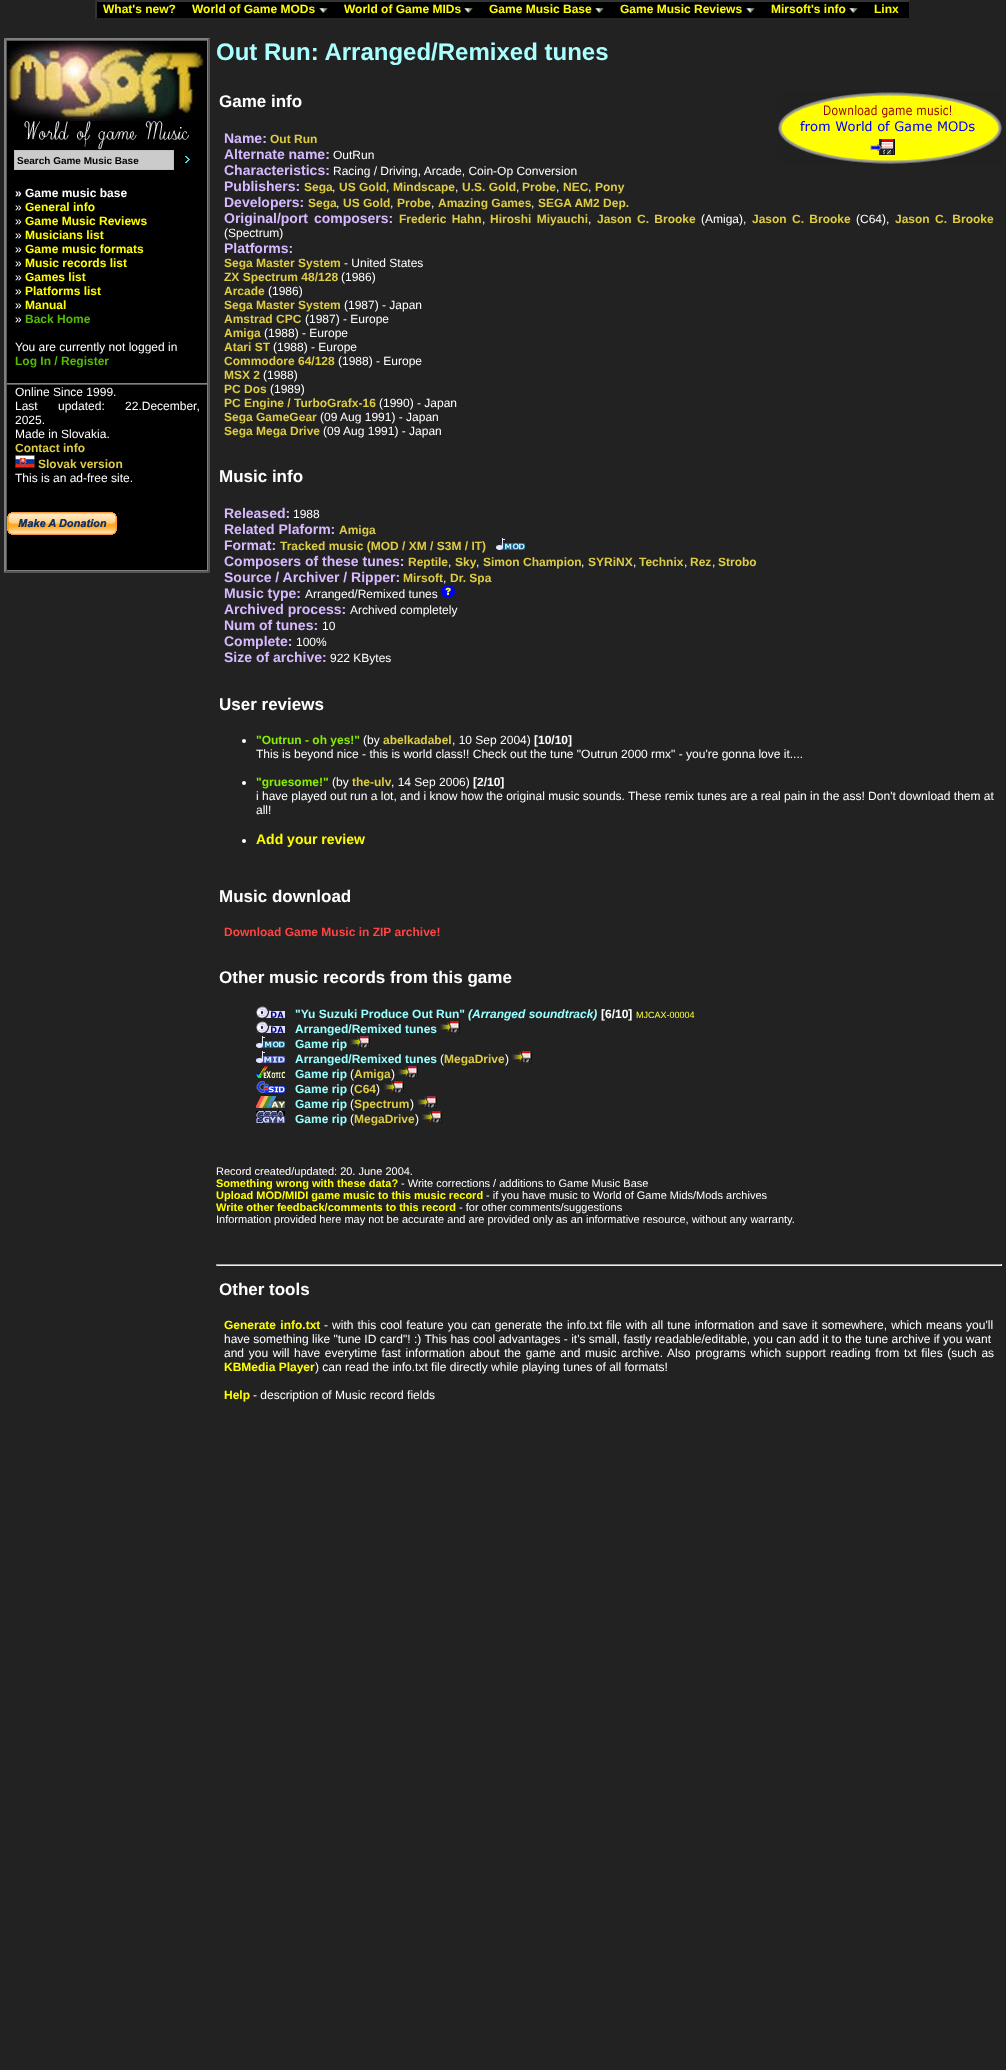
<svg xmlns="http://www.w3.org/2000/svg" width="1006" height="2070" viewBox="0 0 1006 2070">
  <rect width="100%" height="100%" fill="#222222"/>
  <rect x="95" y="0" width="816" height="20" fill="#000000"/>
  <path d="M95 0H911L909 2H97Z" fill="#343434"/>
  <path d="M911 0V20L909 18V2Z" fill="#232323"/>
  <path d="M911 20H95L97 18H909Z" fill="#232323"/>
  <path d="M95 20V0L97 2V18Z" fill="#343434"/>
  <text x="103" y="13" font-family="Liberation Sans" font-size="12" font-weight="bold" fill="#ffff00">What's new?</text>
  <text x="192" y="13" font-family="Liberation Sans" font-size="12" font-weight="bold" fill="#ffff00">World of Game MODs</text>
  <image x="319" y="8" width="9" height="5" href="img1.png"/>
  <text x="344" y="13" font-family="Liberation Sans" font-size="12" font-weight="bold" fill="#ffff00">World of Game MIDs</text>
  <image x="464" y="8" width="9" height="5" href="img2.png"/>
  <text x="489" y="13" font-family="Liberation Sans" font-size="12" font-weight="bold" fill="#ffff00">Game Music Base</text>
  <image x="595" y="8" width="9" height="5" href="img2.png"/>
  <text x="620" y="13" font-family="Liberation Sans" font-size="12" font-weight="bold" fill="#ffff00">Game Music Reviews</text>
  <image x="746" y="8" width="9" height="5" href="img1.png"/>
  <text x="771" y="13" font-family="Liberation Sans" font-size="12" font-weight="bold" fill="#ffff00">Mirsoft's info</text>
  <image x="849" y="8" width="9" height="5" href="img2.png"/>
  <text x="874" y="13" font-family="Liberation Sans" font-size="12" font-weight="bold" fill="#ffff00">Linx</text>
  <rect x="4" y="38" width="206" height="535" fill="#000000"/>
  <path d="M4 38H210L208 40H6Z" fill="#808080"/>
  <path d="M210 38V573L208 571V40Z" fill="#555555"/>
  <path d="M210 573H4L6 571H208Z" fill="#555555"/>
  <path d="M4 573V38L6 40V571Z" fill="#808080"/>
  <rect x="6" y="40" width="202" height="1" fill="#555555"/>
  <rect x="207" y="40" width="1" height="344" fill="#808080"/>
  <rect x="6" y="383" width="202" height="1" fill="#808080"/>
  <rect x="6" y="40" width="1" height="344" fill="#555555"/>
  <image x="7" y="41" width="200" height="80" href="img3.png"/>
  <image x="24" y="121" width="166" height="29" href="img4.png"/>
  <rect x="14.5" y="150.5" width="159" height="19" fill="#cbcbcb" stroke="#c0c0c0"/>
  <text x="17" y="164" font-family="Liberation Sans" font-size="10" font-weight="bold" fill="#000000">Search Game Music Base</text>
  <image x="185" y="156" width="5" height="7" href="img5.png"/>
  <text x="15" y="197" font-family="Liberation Sans" font-size="12" font-weight="bold" fill="#ffffff">» Game music base</text>
  <text x="15" y="211" font-family="Liberation Sans" font-size="12" fill="#ffffff">»</text>
  <text x="25" y="211" font-family="Liberation Sans" font-size="12" font-weight="bold" fill="#ffff00">General info</text>
  <text x="15" y="225" font-family="Liberation Sans" font-size="12" fill="#ffffff">»</text>
  <text x="25" y="225" font-family="Liberation Sans" font-size="12" font-weight="bold" fill="#ffff00">Game Music Reviews</text>
  <text x="15" y="239" font-family="Liberation Sans" font-size="12" fill="#ffffff">»</text>
  <text x="25" y="239" font-family="Liberation Sans" font-size="12" font-weight="bold" fill="#ffff00">Musicians list</text>
  <text x="15" y="253" font-family="Liberation Sans" font-size="12" fill="#ffffff">»</text>
  <text x="25" y="253" font-family="Liberation Sans" font-size="12" font-weight="bold" fill="#ffff00">Game music formats</text>
  <text x="15" y="267" font-family="Liberation Sans" font-size="12" fill="#ffffff">»</text>
  <text x="25" y="267" font-family="Liberation Sans" font-size="12" font-weight="bold" fill="#ffff00">Music records list</text>
  <text x="15" y="281" font-family="Liberation Sans" font-size="12" fill="#ffffff">»</text>
  <text x="25" y="281" font-family="Liberation Sans" font-size="12" font-weight="bold" fill="#ffff00">Games list</text>
  <text x="15" y="295" font-family="Liberation Sans" font-size="12" fill="#ffffff">»</text>
  <text x="25" y="295" font-family="Liberation Sans" font-size="12" font-weight="bold" fill="#ffff00">Platforms list</text>
  <text x="15" y="309" font-family="Liberation Sans" font-size="12" fill="#ffffff">»</text>
  <text x="25" y="309" font-family="Liberation Sans" font-size="12" font-weight="bold" fill="#ffff00">Manual</text>
  <text x="15" y="323" font-family="Liberation Sans" font-size="12" fill="#ffffff">»</text>
  <text x="25" y="323" font-family="Liberation Sans" font-size="12" font-weight="bold" fill="#55bb00">Back Home</text>
  <text x="15" y="351" font-family="Liberation Sans" font-size="12" fill="#ffffff">You are currently not logged in</text>
  <text x="15" y="365" font-family="Liberation Sans" font-size="12" font-weight="bold" fill="#55bb00">Log In / Register</text>
  <rect x="6" y="384" width="202" height="1" fill="#555555"/>
  <rect x="207" y="384" width="1" height="187" fill="#808080"/>
  <rect x="6" y="570" width="202" height="1" fill="#808080"/>
  <rect x="6" y="384" width="1" height="187" fill="#555555"/>
  <text x="15" y="396" font-family="Liberation Sans" font-size="12" fill="#ffffff">Online Since 1999.</text>
  <text x="15" y="410" word-spacing="17" font-family="Liberation Sans" font-size="12" fill="#ffffff">Last updated: 22.December,</text>
  <text x="15" y="424" font-family="Liberation Sans" font-size="12" fill="#ffffff">2025.</text>
  <text x="15" y="438" font-family="Liberation Sans" font-size="12" fill="#ffffff">Made in Slovakia.</text>
  <text x="15" y="452" font-family="Liberation Sans" font-size="12" font-weight="bold" fill="#ddcc44">Contact info</text>
  <image x="15" y="455" width="20" height="13" href="img6.png"/>
  <text x="38" y="468" font-family="Liberation Sans" font-size="12" font-weight="bold" fill="#ddcc44">Slovak version</text>
  <text x="15" y="482" font-family="Liberation Sans" font-size="12" fill="#ffffff">This is an ad-free site.</text>
  <image x="7" y="512" width="110" height="23" href="img7.png"/>
  <text x="216" y="60" font-family="Liberation Sans" font-size="24" font-weight="bold" fill="#aaffff">Out Run: Arranged/Remixed tunes</text>
  <text x="219" y="107" font-family="Liberation Sans" font-size="17" font-weight="bold" fill="#ffffff">Game info</text>
  <image x="778" y="92" width="224" height="72" href="img8.png"/>
  <text x="224" y="143" font-family="Liberation Sans" font-size="14" font-weight="bold" fill="#d7b9ff">Name:</text>
  <text x="270" y="143" font-family="Liberation Sans" font-size="12" font-weight="bold" fill="#ddcc44">Out Run</text>
  <text x="224" y="159" font-family="Liberation Sans" font-size="14" font-weight="bold" fill="#d7b9ff">Alternate name:</text>
  <text x="333" y="159" font-family="Liberation Sans" font-size="12" fill="#ffffff">OutRun</text>
  <text x="224" y="175" font-family="Liberation Sans" font-size="14" font-weight="bold" fill="#d7b9ff">Characteristics:</text>
  <text x="333" y="175" font-family="Liberation Sans" font-size="12" fill="#ffffff">Racing / Driving, Arcade, Coin-Op Conversion</text>
  <text x="224" y="191" font-family="Liberation Sans" font-size="14" font-weight="bold" fill="#d7b9ff">Publishers:</text>
  <text x="304" y="191" font-family="Liberation Sans" font-size="12" font-weight="bold" fill="#ddcc44">Sega</text>
  <text x="332" y="191" font-family="Liberation Sans" font-size="12" fill="#ffffff">,</text>
  <text x="339" y="191" font-family="Liberation Sans" font-size="12" font-weight="bold" fill="#ddcc44">US Gold</text>
  <text x="386" y="191" font-family="Liberation Sans" font-size="12" fill="#ffffff">,</text>
  <text x="393" y="191" font-family="Liberation Sans" font-size="12" font-weight="bold" fill="#ddcc44">Mindscape</text>
  <text x="455" y="191" font-family="Liberation Sans" font-size="12" fill="#ffffff">,</text>
  <text x="462" y="191" font-family="Liberation Sans" font-size="12" font-weight="bold" fill="#ddcc44">U.S. Gold</text>
  <text x="516" y="191" font-family="Liberation Sans" font-size="12" fill="#ffffff">,</text>
  <text x="522" y="191" font-family="Liberation Sans" font-size="12" font-weight="bold" fill="#ddcc44">Probe</text>
  <text x="556" y="191" font-family="Liberation Sans" font-size="12" fill="#ffffff">,</text>
  <text x="563" y="191" font-family="Liberation Sans" font-size="12" font-weight="bold" fill="#ddcc44">NEC</text>
  <text x="588" y="191" font-family="Liberation Sans" font-size="12" fill="#ffffff">,</text>
  <text x="595" y="191" font-family="Liberation Sans" font-size="12" font-weight="bold" fill="#ddcc44">Pony</text>
  <text x="224" y="207" font-family="Liberation Sans" font-size="14" font-weight="bold" fill="#d7b9ff">Developers:</text>
  <text x="308" y="207" font-family="Liberation Sans" font-size="12" font-weight="bold" fill="#ddcc44">Sega</text>
  <text x="336" y="207" font-family="Liberation Sans" font-size="12" fill="#ffffff">,</text>
  <text x="343" y="207" font-family="Liberation Sans" font-size="12" font-weight="bold" fill="#ddcc44">US Gold</text>
  <text x="390" y="207" font-family="Liberation Sans" font-size="12" fill="#ffffff">,</text>
  <text x="397" y="207" font-family="Liberation Sans" font-size="12" font-weight="bold" fill="#ddcc44">Probe</text>
  <text x="431" y="207" font-family="Liberation Sans" font-size="12" fill="#ffffff">,</text>
  <text x="438" y="207" font-family="Liberation Sans" font-size="12" font-weight="bold" fill="#ddcc44">Amazing Games</text>
  <text x="531" y="207" font-family="Liberation Sans" font-size="12" fill="#ffffff">,</text>
  <text x="538" y="207" font-family="Liberation Sans" font-size="12" font-weight="bold" fill="#ddcc44">SEGA AM2 Dep.</text>
  <text x="224" y="223" word-spacing="2" font-family="Liberation Sans" font-size="14" font-weight="bold" fill="#d7b9ff">Original/port composers:</text>
  <text x="399" y="223" word-spacing="2" font-family="Liberation Sans" font-size="12" font-weight="bold" fill="#ddcc44">Frederic Hahn</text>
  <text x="482" y="223" font-family="Liberation Sans" font-size="12" fill="#ffffff">,</text>
  <text x="490" y="223" word-spacing="2" font-family="Liberation Sans" font-size="12" font-weight="bold" fill="#ddcc44">Hiroshi Miyauchi</text>
  <text x="588" y="223" font-family="Liberation Sans" font-size="12" fill="#ffffff">,</text>
  <text x="597" y="223" word-spacing="2" font-family="Liberation Sans" font-size="12" font-weight="bold" fill="#ddcc44">Jason C. Brooke</text>
  <text x="701" y="223" font-family="Liberation Sans" font-size="12" fill="#ffffff">(Amiga),</text>
  <text x="752" y="223" word-spacing="2" font-family="Liberation Sans" font-size="12" font-weight="bold" fill="#ddcc44">Jason C. Brooke</text>
  <text x="856" y="223" font-family="Liberation Sans" font-size="12" fill="#ffffff">(C64),</text>
  <text x="895" y="223" word-spacing="2" font-family="Liberation Sans" font-size="12" font-weight="bold" fill="#ddcc44">Jason C. Brooke</text>
  <text x="224" y="237" font-family="Liberation Sans" font-size="12" fill="#ffffff">(Spectrum)</text>
  <text x="224" y="253" font-family="Liberation Sans" font-size="14" font-weight="bold" fill="#d7b9ff">Platforms:</text>
  <text x="224" y="267" font-family="Liberation Sans" font-size="12" font-weight="bold" fill="#ddcc44">Sega Master System</text>
  <text x="344" y="267" font-family="Liberation Sans" font-size="12" fill="#ffffff">- United States</text>
  <text x="224" y="281" font-family="Liberation Sans" font-size="12" font-weight="bold" fill="#ddcc44">ZX Spectrum 48/128</text>
  <text x="341" y="281" font-family="Liberation Sans" font-size="12" fill="#ffffff">(1986)</text>
  <text x="224" y="295" font-family="Liberation Sans" font-size="12" font-weight="bold" fill="#ddcc44">Arcade</text>
  <text x="268" y="295" font-family="Liberation Sans" font-size="12" fill="#ffffff">(1986)</text>
  <text x="224" y="309" font-family="Liberation Sans" font-size="12" font-weight="bold" fill="#ddcc44">Sega Master System</text>
  <text x="344" y="309" font-family="Liberation Sans" font-size="12" fill="#ffffff">(1987) - Japan</text>
  <text x="224" y="323" font-family="Liberation Sans" font-size="12" font-weight="bold" fill="#ddcc44">Amstrad CPC</text>
  <text x="305" y="323" font-family="Liberation Sans" font-size="12" fill="#ffffff">(1987) - Europe</text>
  <text x="224" y="337" font-family="Liberation Sans" font-size="12" font-weight="bold" fill="#ddcc44">Amiga</text>
  <text x="264" y="337" font-family="Liberation Sans" font-size="12" fill="#ffffff">(1988) - Europe</text>
  <text x="224" y="351" font-family="Liberation Sans" font-size="12" font-weight="bold" fill="#ddcc44">Atari ST</text>
  <text x="273" y="351" font-family="Liberation Sans" font-size="12" fill="#ffffff">(1988) - Europe</text>
  <text x="224" y="365" font-family="Liberation Sans" font-size="12" font-weight="bold" fill="#ddcc44">Commodore 64/128</text>
  <text x="338" y="365" font-family="Liberation Sans" font-size="12" fill="#ffffff">(1988) - Europe</text>
  <text x="224" y="379" font-family="Liberation Sans" font-size="12" font-weight="bold" fill="#ddcc44">MSX 2</text>
  <text x="263" y="379" font-family="Liberation Sans" font-size="12" fill="#ffffff">(1988)</text>
  <text x="224" y="393" font-family="Liberation Sans" font-size="12" font-weight="bold" fill="#ddcc44">PC Dos</text>
  <text x="270" y="393" font-family="Liberation Sans" font-size="12" fill="#ffffff">(1989)</text>
  <text x="224" y="407" font-family="Liberation Sans" font-size="12" font-weight="bold" fill="#ddcc44">PC Engine / TurboGrafx-16</text>
  <text x="379" y="407" font-family="Liberation Sans" font-size="12" fill="#ffffff">(1990) - Japan</text>
  <text x="224" y="421" font-family="Liberation Sans" font-size="12" font-weight="bold" fill="#ddcc44">Sega GameGear</text>
  <text x="320" y="421" font-family="Liberation Sans" font-size="12" fill="#ffffff">(09 Aug 1991) - Japan</text>
  <text x="224" y="435" font-family="Liberation Sans" font-size="12" font-weight="bold" fill="#ddcc44">Sega Mega Drive</text>
  <text x="323" y="435" font-family="Liberation Sans" font-size="12" fill="#ffffff">(09 Aug 1991) - Japan</text>
  <text x="219" y="482" font-family="Liberation Sans" font-size="17" font-weight="bold" fill="#ffffff">Music info</text>
  <text x="224" y="518" font-family="Liberation Sans" font-size="14" font-weight="bold" fill="#d7b9ff">Released:</text>
  <text x="293" y="518" font-family="Liberation Sans" font-size="12" fill="#ffffff">1988</text>
  <text x="224" y="534" font-family="Liberation Sans" font-size="14" font-weight="bold" fill="#d7b9ff">Related Plaform:</text>
  <text x="339" y="534" font-family="Liberation Sans" font-size="12" font-weight="bold" fill="#ddcc44">Amiga</text>
  <text x="224" y="550" font-family="Liberation Sans" font-size="14" font-weight="bold" fill="#d7b9ff">Format:</text>
  <text x="280" y="550" font-family="Liberation Sans" font-size="12" font-weight="bold" fill="#ddcc44">Tracked music (MOD / XM / S3M / IT)</text>
  <image x="496" y="538" width="29" height="12" href="img9.png"/>
  <text x="224" y="566" font-family="Liberation Sans" font-size="14" font-weight="bold" fill="#d7b9ff">Composers of these tunes:</text>
  <text x="408" y="566" font-family="Liberation Sans" font-size="12" font-weight="bold" fill="#ddcc44">Reptile</text>
  <text x="448" y="566" font-family="Liberation Sans" font-size="12" fill="#ffffff">,</text>
  <text x="455" y="566" font-family="Liberation Sans" font-size="12" font-weight="bold" fill="#ddcc44">Sky</text>
  <text x="476" y="566" font-family="Liberation Sans" font-size="12" fill="#ffffff">,</text>
  <text x="483" y="566" font-family="Liberation Sans" font-size="12" font-weight="bold" fill="#ddcc44">Simon Champion</text>
  <text x="581" y="566" font-family="Liberation Sans" font-size="12" fill="#ffffff">,</text>
  <text x="588" y="566" font-family="Liberation Sans" font-size="12" font-weight="bold" fill="#ddcc44">SYRiNX</text>
  <text x="633" y="566" font-family="Liberation Sans" font-size="12" fill="#ffffff">,</text>
  <text x="639" y="566" font-family="Liberation Sans" font-size="12" font-weight="bold" fill="#ddcc44">Technix</text>
  <text x="684" y="566" font-family="Liberation Sans" font-size="12" fill="#ffffff">,</text>
  <text x="690" y="566" font-family="Liberation Sans" font-size="12" font-weight="bold" fill="#ddcc44">Rez</text>
  <text x="712" y="566" font-family="Liberation Sans" font-size="12" fill="#ffffff">,</text>
  <text x="718" y="566" font-family="Liberation Sans" font-size="12" font-weight="bold" fill="#ddcc44">Strobo</text>
  <text x="224" y="582" font-family="Liberation Sans" font-size="14" font-weight="bold" fill="#d7b9ff">Source / Archiver / Ripper:</text>
  <text x="403" y="582" font-family="Liberation Sans" font-size="12" font-weight="bold" fill="#ddcc44">Mirsoft</text>
  <text x="443" y="582" font-family="Liberation Sans" font-size="12" fill="#ffffff">,</text>
  <text x="450" y="582" font-family="Liberation Sans" font-size="12" font-weight="bold" fill="#ddcc44">Dr. Spa</text>
  <text x="224" y="598" font-family="Liberation Sans" font-size="14" font-weight="bold" fill="#d7b9ff">Music type:</text>
  <text x="305" y="598" font-family="Liberation Sans" font-size="12" fill="#ffffff">Arranged/Remixed tunes</text>
  <image x="441" y="585" width="14" height="13" href="img10.png"/>
  <text x="224" y="614" font-family="Liberation Sans" font-size="14" font-weight="bold" fill="#d7b9ff">Archived process:</text>
  <text x="350" y="614" font-family="Liberation Sans" font-size="12" fill="#ffffff">Archived completely</text>
  <text x="224" y="630" font-family="Liberation Sans" font-size="14" font-weight="bold" fill="#d7b9ff">Num of tunes:</text>
  <text x="322" y="630" font-family="Liberation Sans" font-size="12" fill="#ffffff">10</text>
  <text x="224" y="646" font-family="Liberation Sans" font-size="14" font-weight="bold" fill="#d7b9ff">Complete:</text>
  <text x="296" y="646" font-family="Liberation Sans" font-size="12" fill="#ffffff">100%</text>
  <text x="224" y="662" font-family="Liberation Sans" font-size="14" font-weight="bold" fill="#d7b9ff">Size of archive:</text>
  <text x="330" y="662" font-family="Liberation Sans" font-size="12" fill="#ffffff">922 KBytes</text>
  <text x="219" y="710" font-family="Liberation Sans" font-size="17" font-weight="bold" fill="#ffffff">User reviews</text>
  <circle cx="244" cy="741" r="2" fill="#ffffff"/>
  <text x="256" y="744" font-family="Liberation Sans" font-size="12" font-weight="bold" fill="#88ee00">"Outrun - oh yes!"</text>
  <text x="363" y="744" font-family="Liberation Sans" font-size="12" fill="#ffffff">(by</text>
  <text x="383" y="744" font-family="Liberation Sans" font-size="12" font-weight="bold" fill="#ddcc44">abelkadabel</text>
  <text x="452" y="744" font-family="Liberation Sans" font-size="12" fill="#ffffff">, 10 Sep 2004)</text>
  <text x="534" y="744" font-family="Liberation Sans" font-size="12" font-weight="bold" fill="#ffffff">[10/10]</text>
  <text x="256" y="758" font-family="Liberation Sans" font-size="12" fill="#ffffff">This is beyond nice - this is world class!! Check out the tune "Outrun 2000 rmx" - you're gonna love it....</text>
  <circle cx="244" cy="783" r="2" fill="#ffffff"/>
  <text x="256" y="786" font-family="Liberation Sans" font-size="12" font-weight="bold" fill="#88ee00">"gruesome!"</text>
  <text x="332" y="786" font-family="Liberation Sans" font-size="12" fill="#ffffff">(by</text>
  <text x="352" y="786" font-family="Liberation Sans" font-size="12" font-weight="bold" fill="#ddcc44">the-ulv</text>
  <text x="391" y="786" font-family="Liberation Sans" font-size="12" fill="#ffffff">, 14 Sep 2006)</text>
  <text x="473" y="786" font-family="Liberation Sans" font-size="12" font-weight="bold" fill="#ffffff">[2/10]</text>
  <text x="256" y="800" font-family="Liberation Sans" font-size="12" fill="#ffffff">i have played out run a lot, and i know how the original music sounds. These remix tunes are a real pain in the ass! Don't download them at</text>
  <text x="256" y="814" font-family="Liberation Sans" font-size="12" fill="#ffffff">all!</text>
  <circle cx="244" cy="841" r="2" fill="#ffffff"/>
  <text x="256" y="844" font-family="Liberation Sans" font-size="14" font-weight="bold" fill="#ffff00">Add your review</text>
  <text x="219" y="902" font-family="Liberation Sans" font-size="17" font-weight="bold" fill="#ffffff">Music download</text>
  <text x="224" y="936" font-family="Liberation Sans" font-size="12" font-weight="bold" fill="#ff4444">Download Game Music in ZIP archive!</text>
  <text x="219" y="983" font-family="Liberation Sans" font-size="17" font-weight="bold" fill="#ffffff">Other music records from this game</text>
  <image x="256" y="1006" width="29" height="12" href="img11.png"/>
  <text x="295" y="1018" font-family="Liberation Sans" font-size="12" font-weight="bold" fill="#99ffff">"Yu Suzuki Produce Out Run"</text>
  <text x="468" y="1018" font-family="Liberation Sans" font-size="12" font-weight="bold" font-style="italic" fill="#99ffff">(Arranged soundtrack)</text>
  <text x="601" y="1018" font-family="Liberation Sans" font-size="12" font-weight="bold" fill="#ffffff">[6/10]</text>
  <text x="636" y="1018" font-family="Liberation Sans" font-size="9" fill="#faff3e">MJCAX-00004</text>
  <image x="256" y="1021" width="29" height="12" href="img11.png"/>
  <text x="295" y="1033" font-family="Liberation Sans" font-size="12" font-weight="bold" fill="#99ffff">Arranged/Remixed tunes</text>
  <image x="440" y="1021" width="20" height="12" href="img12.png"/>
  <image x="256" y="1036" width="29" height="12" href="img9.png"/>
  <text x="295" y="1048" font-family="Liberation Sans" font-size="12" font-weight="bold" fill="#99ffff">Game rip</text>
  <image x="350" y="1036" width="20" height="12" href="img12.png"/>
  <image x="256" y="1051" width="29" height="12" href="img13.png"/>
  <text x="295" y="1063" font-family="Liberation Sans" font-size="12" font-weight="bold" fill="#99ffff">Arranged/Remixed tunes</text>
  <text x="440" y="1063" font-family="Liberation Sans" font-size="12" fill="#ffffff">(</text>
  <text x="444" y="1063" font-family="Liberation Sans" font-size="12" font-weight="bold" fill="#ddcc44">MegaDrive</text>
  <text x="505" y="1063" font-family="Liberation Sans" font-size="12" fill="#ffffff">)</text>
  <image x="512" y="1051" width="20" height="12" href="img12.png"/>
  <image x="256" y="1066" width="29" height="12" href="img14.png"/>
  <text x="295" y="1078" font-family="Liberation Sans" font-size="12" font-weight="bold" fill="#99ffff">Game rip</text>
  <text x="350" y="1078" font-family="Liberation Sans" font-size="12" fill="#ffffff">(</text>
  <text x="354" y="1078" font-family="Liberation Sans" font-size="12" font-weight="bold" fill="#ddcc44">Amiga</text>
  <text x="391" y="1078" font-family="Liberation Sans" font-size="12" fill="#ffffff">)</text>
  <image x="398" y="1066" width="20" height="12" href="img12.png"/>
  <image x="256" y="1081" width="29" height="12" href="img15.png"/>
  <text x="295" y="1093" font-family="Liberation Sans" font-size="12" font-weight="bold" fill="#99ffff">Game rip</text>
  <text x="350" y="1093" font-family="Liberation Sans" font-size="12" fill="#ffffff">(</text>
  <text x="354" y="1093" font-family="Liberation Sans" font-size="12" font-weight="bold" fill="#ddcc44">C64</text>
  <text x="376" y="1093" font-family="Liberation Sans" font-size="12" fill="#ffffff">)</text>
  <image x="384" y="1081" width="20" height="12" href="img12.png"/>
  <image x="256" y="1096" width="29" height="12" href="img16.png"/>
  <text x="295" y="1108" font-family="Liberation Sans" font-size="12" font-weight="bold" fill="#99ffff">Game rip</text>
  <text x="350" y="1108" font-family="Liberation Sans" font-size="12" fill="#ffffff">(</text>
  <text x="354" y="1108" font-family="Liberation Sans" font-size="12" font-weight="bold" fill="#ddcc44">Spectrum</text>
  <text x="410" y="1108" font-family="Liberation Sans" font-size="12" fill="#ffffff">)</text>
  <image x="417" y="1096" width="20" height="12" href="img12.png"/>
  <image x="256" y="1111" width="29" height="12" href="img17.png"/>
  <text x="295" y="1123" font-family="Liberation Sans" font-size="12" font-weight="bold" fill="#99ffff">Game rip</text>
  <text x="350" y="1123" font-family="Liberation Sans" font-size="12" fill="#ffffff">(</text>
  <text x="354" y="1123" font-family="Liberation Sans" font-size="12" font-weight="bold" fill="#ddcc44">MegaDrive</text>
  <text x="415" y="1123" font-family="Liberation Sans" font-size="12" fill="#ffffff">)</text>
  <image x="422" y="1111" width="20" height="12" href="img12.png"/>
  <text x="216" y="1175" font-family="Liberation Sans" font-size="11" fill="#ffffff">Record created/updated: 20. June 2004.</text>
  <text x="216" y="1187" font-family="Liberation Sans" font-size="11" font-weight="bold" fill="#ffff00">Something wrong with these data?</text>
  <text x="401" y="1187" font-family="Liberation Sans" font-size="11" fill="#ffffff">- Write corrections / additions to Game Music Base</text>
  <text x="216" y="1199" font-family="Liberation Sans" font-size="11" font-weight="bold" fill="#ffff00">Upload MOD/MIDI game music to this music record</text>
  <text x="486" y="1199" font-family="Liberation Sans" font-size="11" fill="#ffffff">- if you have music to World of Game Mids/Mods archives</text>
  <text x="216" y="1211" font-family="Liberation Sans" font-size="11" font-weight="bold" fill="#ffff00">Write other feedback/comments to this record</text>
  <text x="459" y="1211" font-family="Liberation Sans" font-size="11" fill="#ffffff">- for other comments/suggestions</text>
  <text x="216" y="1223" font-family="Liberation Sans" font-size="11" fill="#ffffff">Information provided here may not be accurate and are provided only as an informative resource, without any warranty.</text>
  <rect x="216" y="1264" width="786" height="1" fill="#9f9f9f"/>
  <rect x="1001" y="1264" width="1" height="2" fill="#eeeeee"/>
  <rect x="216" y="1265" width="786" height="1" fill="#eeeeee"/>
  <rect x="216" y="1264" width="1" height="2" fill="#9f9f9f"/>
  <text x="219" y="1295" font-family="Liberation Sans" font-size="17" font-weight="bold" fill="#ffffff">Other tools</text>
  <text x="224" y="1329" word-spacing="1" font-family="Liberation Sans" font-size="12" font-weight="bold" fill="#ffff00">Generate info.txt</text>
  <text x="324" y="1329" word-spacing="0.75" font-family="Liberation Sans" font-size="12" fill="#ffffff">- with this cool feature you can generate the info.txt file with all tune information and save it somewhere, which means you'll</text>
  <text x="224" y="1343" font-family="Liberation Sans" font-size="12" fill="#ffffff">have something like "tune ID card"! :) This has cool advantages - it's small, fastly readable/editable, you can add it to the tune archive if you want</text>
  <text x="224" y="1357" word-spacing="1.35" font-family="Liberation Sans" font-size="12" fill="#ffffff">and you will have everytime fast information about the game and music archive. Also programs which support reading from txt files (such as</text>
  <text x="224" y="1371" font-family="Liberation Sans" font-size="12" font-weight="bold" fill="#ffff00">KBMedia Player</text>
  <text x="315" y="1371" font-family="Liberation Sans" font-size="12" fill="#ffffff">) can read the info.txt file directly while playing tunes of all formats!</text>
  <text x="224" y="1399" font-family="Liberation Sans" font-size="12" font-weight="bold" fill="#ffff00">Help</text>
  <text x="253" y="1399" font-family="Liberation Sans" font-size="12" fill="#ffffff">- description of Music record fields</text>
</svg>
